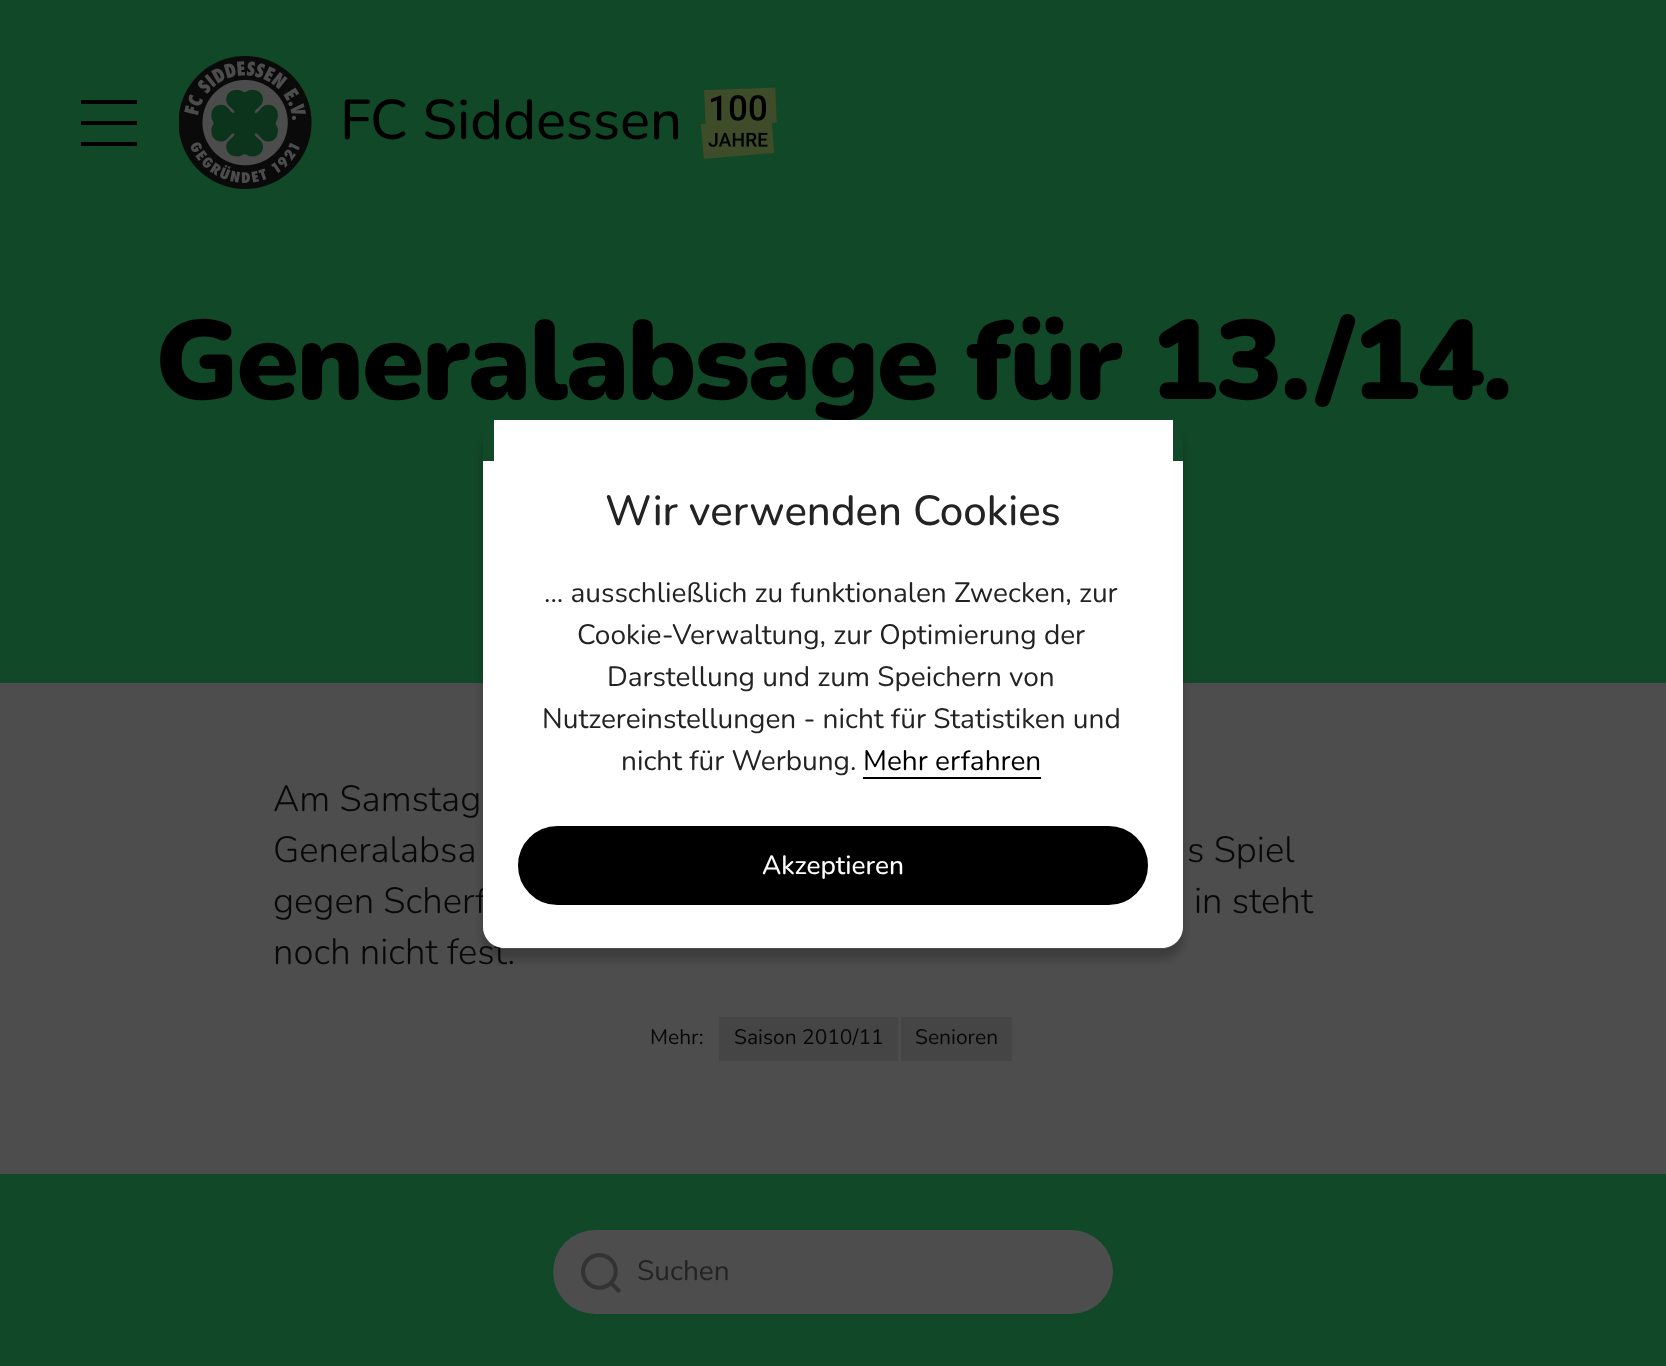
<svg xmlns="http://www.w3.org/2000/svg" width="1666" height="1366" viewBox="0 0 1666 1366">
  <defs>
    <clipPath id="clip1"><path d="M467 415H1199V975H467ZM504 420H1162C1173.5 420 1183 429.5 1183 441V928C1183 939.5 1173.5 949 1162 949H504C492.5 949 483 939.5 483 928V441C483 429.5 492.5 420 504 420Z" clip-rule="evenodd"/></clipPath>
    <filter id="blur1" x="-50%" y="-200%" width="200%" height="500%"><feGaussianBlur stdDeviation="5"/></filter>
  </defs>
  <rect width="100%" height="100%" fill="#4d4d4d"/>
  <rect x="0" y="0" width="1666" height="683" fill="#114828"/>
  <rect x="81" y="121" width="56" height="4" fill="#000000"/>
  <rect x="81" y="100" width="56" height="4" fill="#000000"/>
  <rect x="81" y="142" width="56" height="4" fill="#000000"/>
  <image x="179" y="56" width="133" height="133" href="img1.png"/>
  <text x="340" y="139" font-family="Nunito" font-size="56" font-weight="200" fill="#000000">FC Siddessen</text>
  <image x="700" y="87" width="77" height="72" href="img2.png"/>
  <text x="155" y="399" font-family="'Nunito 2'" font-size="112" font-weight="200" letter-spacing="-2.25" fill="#000000">Generalabsage für 13./14.</text>
  <text x="273" y="811" font-family="'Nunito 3'" font-size="36.5" font-weight="200" fill="#080808">Am Samstag</text>
  <text x="273" y="862" font-family="'Nunito 3'" font-size="36.5" font-weight="200" fill="#080808">Generalabsa</text>
  <text x="1187" y="862" font-family="'Nunito 3'" font-size="36.5" font-weight="200" fill="#080808">s Spiel</text>
  <text x="273" y="913" font-family="'Nunito 3'" font-size="36.5" font-weight="200" fill="#080808">gegen Scherf</text>
  <text x="1194" y="913" font-family="'Nunito 3'" font-size="36.5" font-weight="200" fill="#080808">in steht</text>
  <text x="273" y="964" font-family="'Nunito 3'" font-size="36.5" font-weight="200" fill="#080808">noch nicht fest.</text>
  <text x="650" y="1044" font-family="'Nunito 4'" font-size="21" font-weight="200" fill="#080808">Mehr:</text>
  <rect x="719" y="1017" width="179" height="44" fill="#454545"/>
  <text x="734" y="1044" font-family="'Nunito 4'" font-size="21" font-weight="200" fill="#080808">Saison 2010/11</text>
  <rect x="901" y="1017" width="111" height="44" fill="#454545"/>
  <text x="915" y="1044" font-family="'Nunito 4'" font-size="21" font-weight="200" fill="#080808">Senioren</text>
  <rect x="0" y="1174" width="1666" height="192" fill="#114828"/>
  <rect x="553" y="1230" width="560" height="84" rx="42" fill="#4d4d4d"/>
  <image x="581" y="1253" width="40" height="40" href="img3.png"/>
  <text x="637" y="1280" font-family="'Nunito 4'" font-size="28" font-weight="200" fill="#232323">Suchen</text>
  <g clip-path="url(#clip1)">
    <rect x="483" y="431" width="700" height="528" rx="21" fill="#000000" fill-opacity="0.23" filter="url(#blur1)"/>
  </g>
  <path d="M504 461H1183V927C1183 938 1174 948 1162 948H504C492 948 483 938 483 927V461Z" fill="#ffffff"/>
  <rect x="494" y="420" width="679" height="41" fill="#ffffff"/>
  <text x="605" y="525" font-family="Nunito" font-size="42" font-weight="200" fill="#232323">Wir verwenden Cookies</text>
  <text x="544" y="602" font-family="'Nunito 4'" font-size="28" font-weight="200" fill="#232323">... ausschließlich zu funktionalen Zwecken, zur</text>
  <text x="577" y="644" font-family="'Nunito 4'" font-size="28" font-weight="200" fill="#232323">Cookie-Verwaltung, zur Optimierung der</text>
  <text x="607" y="686" font-family="'Nunito 4'" font-size="28" font-weight="200" fill="#232323">Darstellung und zum Speichern von</text>
  <text x="542" y="728" font-family="'Nunito 4'" font-size="28" font-weight="200" fill="#232323">Nutzereinstellungen - nicht für Statistiken und</text>
  <text x="621" y="770" font-family="'Nunito 4'" font-size="28" font-weight="200" fill="#232323">nicht für Werbung.</text>
  <text x="863" y="770" font-family="'Nunito 4'" font-size="28" font-weight="200" fill="#000000">Mehr erfahren</text>
  <rect x="863" y="777" width="178" height="2" fill="#000000"/>
  <rect x="519" y="827" width="628" height="77" rx="38.5" fill="#000000" stroke="#000000" stroke-width="2"/>
  <text x="762" y="874" font-family="Nunito" font-size="26.25" font-weight="200" fill="#ffffff">Akzeptieren</text>
</svg>
